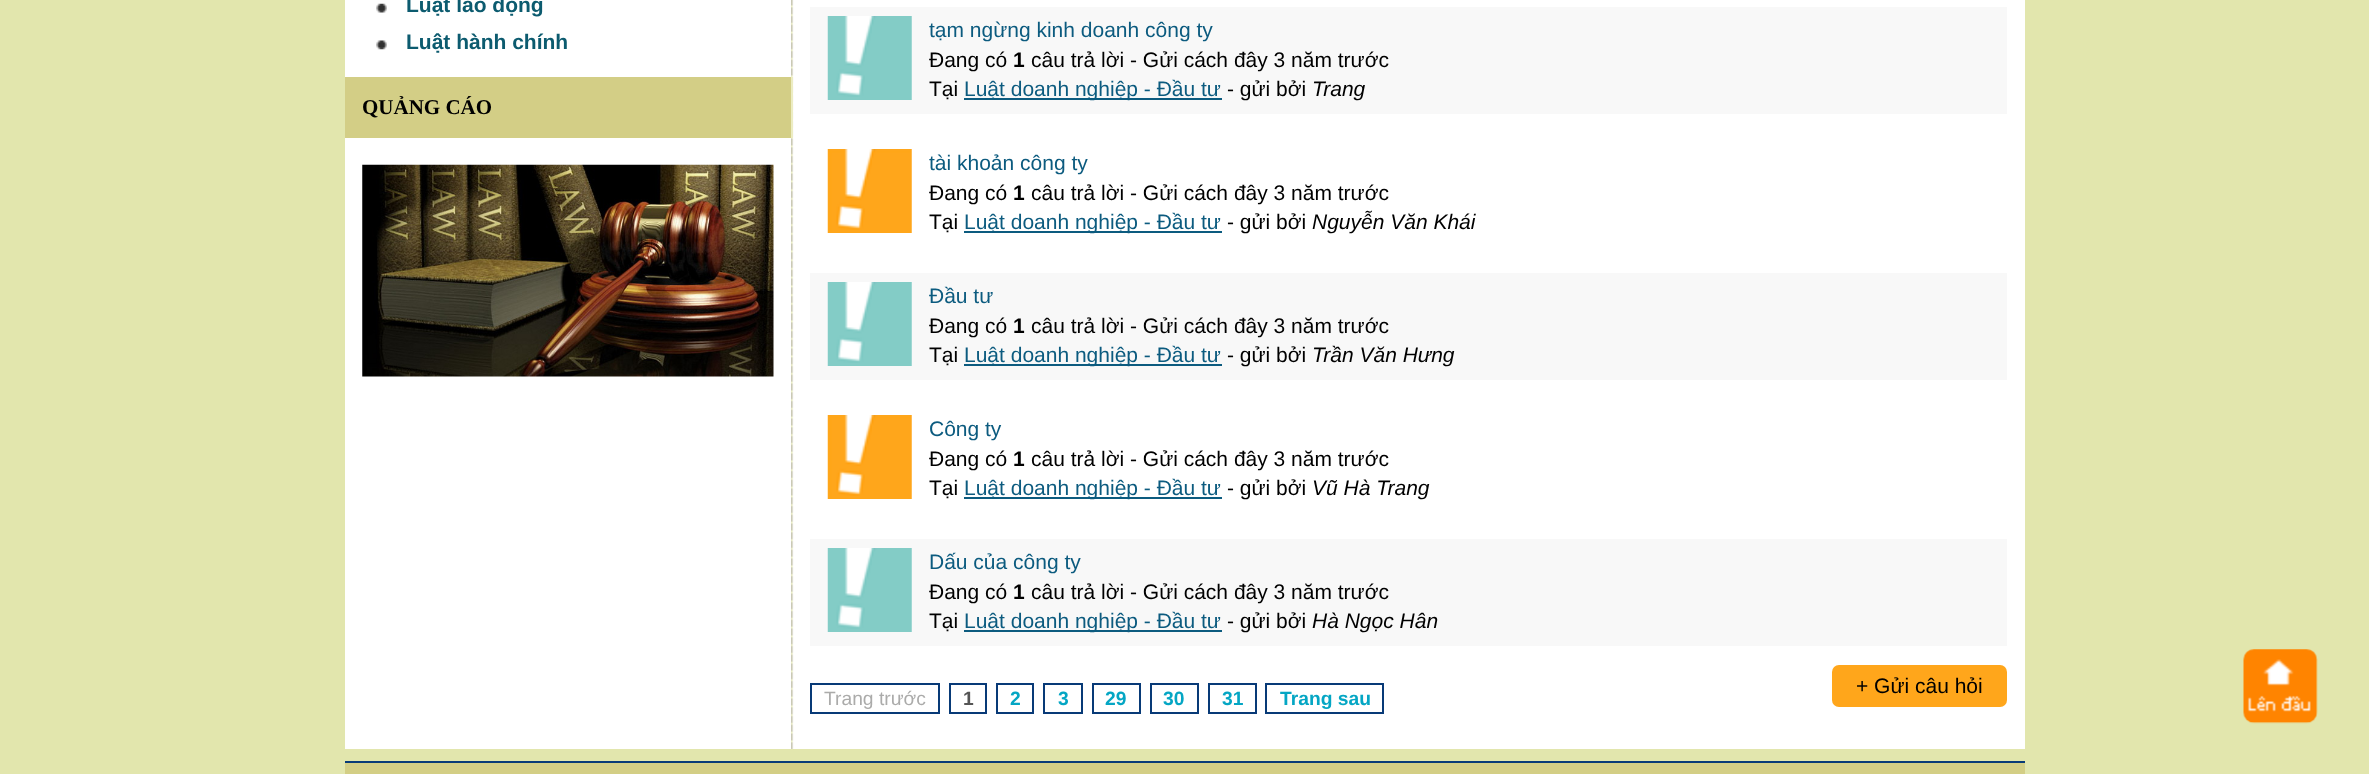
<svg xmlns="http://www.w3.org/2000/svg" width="2369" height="774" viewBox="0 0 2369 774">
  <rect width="100%" height="100%" fill="#e2e6ad"/>
  <rect x="345" y="0" width="1680" height="749" fill="#ffffff"/>
  <image x="791" y="0" width="3" height="750" href="img1.png"/>
  <image x="376" y="3" width="11" height="10" href="img2.png"/>
  <text x="406" y="12" font-family="Liberation Sans" font-size="21" font-weight="bold" fill="#0c5b6f">Luật lao động</text>
  <image x="376" y="40" width="11" height="10" href="img3.png"/>
  <text x="406" y="49" font-family="Liberation Sans" font-size="21" font-weight="bold" fill="#0c5b6f">Luật hành chính</text>
  <rect x="345" y="77" width="446" height="61" fill="#d3ce86"/>
  <rect x="791" y="77" width="2" height="61" fill="#ececc2"/>
  <text x="362" y="114" font-family="Liberation Serif" font-size="21" font-weight="bold" fill="#000000">QUẢNG CÁO</text>
  <image x="362" y="164" width="412" height="213" href="img4.png"/>
  <rect x="810" y="7" width="1197" height="107" fill="#f8f8f8"/>
  <image x="827" y="16" width="85" height="84" href="img5.png"/>
  <text x="929" y="37" font-family="Liberation Sans" font-size="21" fill="#0c5b7f">tạm ngừng kinh doanh công ty</text>
  <text x="929" y="67" font-family="Liberation Sans" font-size="21" fill="#000000">Đang có</text>
  <text x="1013" y="67" font-family="Liberation Sans" font-size="21" font-weight="bold" fill="#000000">1</text>
  <text x="1031" y="67" font-family="Liberation Sans" font-size="21" fill="#000000">câu trả lời - Gửi cách đây 3 năm trước</text>
  <text x="929" y="96" font-family="Liberation Sans" font-size="21" fill="#000000">Tại</text>
  <rect x="964" y="98" width="258" height="2" fill="#0c5b7f"/>
  <text x="964" y="96" font-family="Liberation Sans" font-size="21" fill="#0c5b7f">Luật doanh nghiệp - Đầu tư</text>
  <text x="1227" y="96" font-family="Liberation Sans" font-size="21" fill="#000000">- gửi bởi</text>
  <text x="1312" y="96" font-family="Liberation Sans" font-size="21" font-style="italic" fill="#000000">Trang</text>
  <image x="827" y="149" width="85" height="84" href="img6.png"/>
  <text x="929" y="170" font-family="Liberation Sans" font-size="21" fill="#0c5b7f">tài khoản công ty</text>
  <text x="929" y="200" font-family="Liberation Sans" font-size="21" fill="#000000">Đang có</text>
  <text x="1013" y="200" font-family="Liberation Sans" font-size="21" font-weight="bold" fill="#000000">1</text>
  <text x="1031" y="200" font-family="Liberation Sans" font-size="21" fill="#000000">câu trả lời - Gửi cách đây 3 năm trước</text>
  <text x="929" y="229" font-family="Liberation Sans" font-size="21" fill="#000000">Tại</text>
  <rect x="964" y="231" width="258" height="2" fill="#0c5b7f"/>
  <text x="964" y="229" font-family="Liberation Sans" font-size="21" fill="#0c5b7f">Luật doanh nghiệp - Đầu tư</text>
  <text x="1227" y="229" font-family="Liberation Sans" font-size="21" fill="#000000">- gửi bởi</text>
  <text x="1312" y="229" font-family="Liberation Sans" font-size="21" font-style="italic" fill="#000000">Nguyễn Văn Khái</text>
  <rect x="810" y="273" width="1197" height="107" fill="#f8f8f8"/>
  <image x="827" y="282" width="85" height="84" href="img5.png"/>
  <text x="929" y="303" font-family="Liberation Sans" font-size="21" fill="#0c5b7f">Đầu tư</text>
  <text x="929" y="333" font-family="Liberation Sans" font-size="21" fill="#000000">Đang có</text>
  <text x="1013" y="333" font-family="Liberation Sans" font-size="21" font-weight="bold" fill="#000000">1</text>
  <text x="1031" y="333" font-family="Liberation Sans" font-size="21" fill="#000000">câu trả lời - Gửi cách đây 3 năm trước</text>
  <text x="929" y="362" font-family="Liberation Sans" font-size="21" fill="#000000">Tại</text>
  <rect x="964" y="364" width="258" height="2" fill="#0c5b7f"/>
  <text x="964" y="362" font-family="Liberation Sans" font-size="21" fill="#0c5b7f">Luật doanh nghiệp - Đầu tư</text>
  <text x="1227" y="362" font-family="Liberation Sans" font-size="21" fill="#000000">- gửi bởi</text>
  <text x="1312" y="362" font-family="Liberation Sans" font-size="21" font-style="italic" fill="#000000">Trần Văn Hưng</text>
  <image x="827" y="415" width="85" height="84" href="img6.png"/>
  <text x="929" y="436" font-family="Liberation Sans" font-size="21" fill="#0c5b7f">Công ty</text>
  <text x="929" y="466" font-family="Liberation Sans" font-size="21" fill="#000000">Đang có</text>
  <text x="1013" y="466" font-family="Liberation Sans" font-size="21" font-weight="bold" fill="#000000">1</text>
  <text x="1031" y="466" font-family="Liberation Sans" font-size="21" fill="#000000">câu trả lời - Gửi cách đây 3 năm trước</text>
  <text x="929" y="495" font-family="Liberation Sans" font-size="21" fill="#000000">Tại</text>
  <rect x="964" y="497" width="258" height="2" fill="#0c5b7f"/>
  <text x="964" y="495" font-family="Liberation Sans" font-size="21" fill="#0c5b7f">Luật doanh nghiệp - Đầu tư</text>
  <text x="1227" y="495" font-family="Liberation Sans" font-size="21" fill="#000000">- gửi bởi</text>
  <text x="1312" y="495" font-family="Liberation Sans" font-size="21" font-style="italic" fill="#000000">Vũ Hà Trang</text>
  <rect x="810" y="539" width="1197" height="107" fill="#f8f8f8"/>
  <image x="827" y="548" width="85" height="84" href="img5.png"/>
  <text x="929" y="569" font-family="Liberation Sans" font-size="21" fill="#0c5b7f">Dấu của công ty</text>
  <text x="929" y="599" font-family="Liberation Sans" font-size="21" fill="#000000">Đang có</text>
  <text x="1013" y="599" font-family="Liberation Sans" font-size="21" font-weight="bold" fill="#000000">1</text>
  <text x="1031" y="599" font-family="Liberation Sans" font-size="21" fill="#000000">câu trả lời - Gửi cách đây 3 năm trước</text>
  <text x="929" y="628" font-family="Liberation Sans" font-size="21" fill="#000000">Tại</text>
  <rect x="964" y="630" width="258" height="2" fill="#0c5b7f"/>
  <text x="964" y="628" font-family="Liberation Sans" font-size="21" fill="#0c5b7f">Luật doanh nghiệp - Đầu tư</text>
  <text x="1227" y="628" font-family="Liberation Sans" font-size="21" fill="#000000">- gửi bởi</text>
  <text x="1312" y="628" font-family="Liberation Sans" font-size="21" font-style="italic" fill="#000000">Hà Ngọc Hân</text>
  <rect x="1832" y="665" width="175" height="42" rx="7" fill="#ffa61b"/>
  <text x="1856" y="693" font-family="Liberation Sans" font-size="21" fill="#000000">+ Gửi câu hỏi</text>
  <rect x="811" y="684" width="128" height="29" fill="none" stroke="#083a77" stroke-width="2"/>
  <text x="824" y="705" font-family="Liberation Sans" font-size="19.25" fill="#ababaa">Trang trước</text>
  <rect x="950" y="684" width="36" height="29" fill="none" stroke="#083a77" stroke-width="2"/>
  <text x="963" y="705" font-family="Liberation Sans" font-size="19.25" font-weight="bold" fill="#555555">1</text>
  <rect x="997" y="684" width="36" height="29" fill="none" stroke="#083a77" stroke-width="2"/>
  <text x="1010" y="705" font-family="Liberation Sans" font-size="19.25" font-weight="bold" fill="#04a6c4">2</text>
  <rect x="1044" y="684" width="38" height="29" fill="none" stroke="#083a77" stroke-width="2"/>
  <text x="1058" y="705" font-family="Liberation Sans" font-size="19.25" font-weight="bold" fill="#04a6c4">3</text>
  <rect x="1093" y="684" width="47" height="29" fill="none" stroke="#083a77" stroke-width="2"/>
  <text x="1105" y="705" font-family="Liberation Sans" font-size="19.25" font-weight="bold" fill="#04a6c4">29</text>
  <rect x="1151" y="684" width="47" height="29" fill="none" stroke="#083a77" stroke-width="2"/>
  <text x="1163" y="705" font-family="Liberation Sans" font-size="19.25" font-weight="bold" fill="#04a6c4">30</text>
  <rect x="1209" y="684" width="47" height="29" fill="none" stroke="#083a77" stroke-width="2"/>
  <text x="1222" y="705" font-family="Liberation Sans" font-size="19.25" font-weight="bold" fill="#04a6c4">31</text>
  <rect x="1266" y="684" width="117" height="29" fill="none" stroke="#083a77" stroke-width="2"/>
  <text x="1280" y="705" font-family="Liberation Sans" font-size="19.25" font-weight="bold" fill="#04a6c4">Trang sau</text>
  <image x="2243" y="649" width="75" height="75" href="img7.png"/>
  <rect x="345" y="763" width="1680" height="11" fill="#d3ce85"/>
  <rect x="345" y="761" width="1680" height="2" fill="#083a77"/>
</svg>
